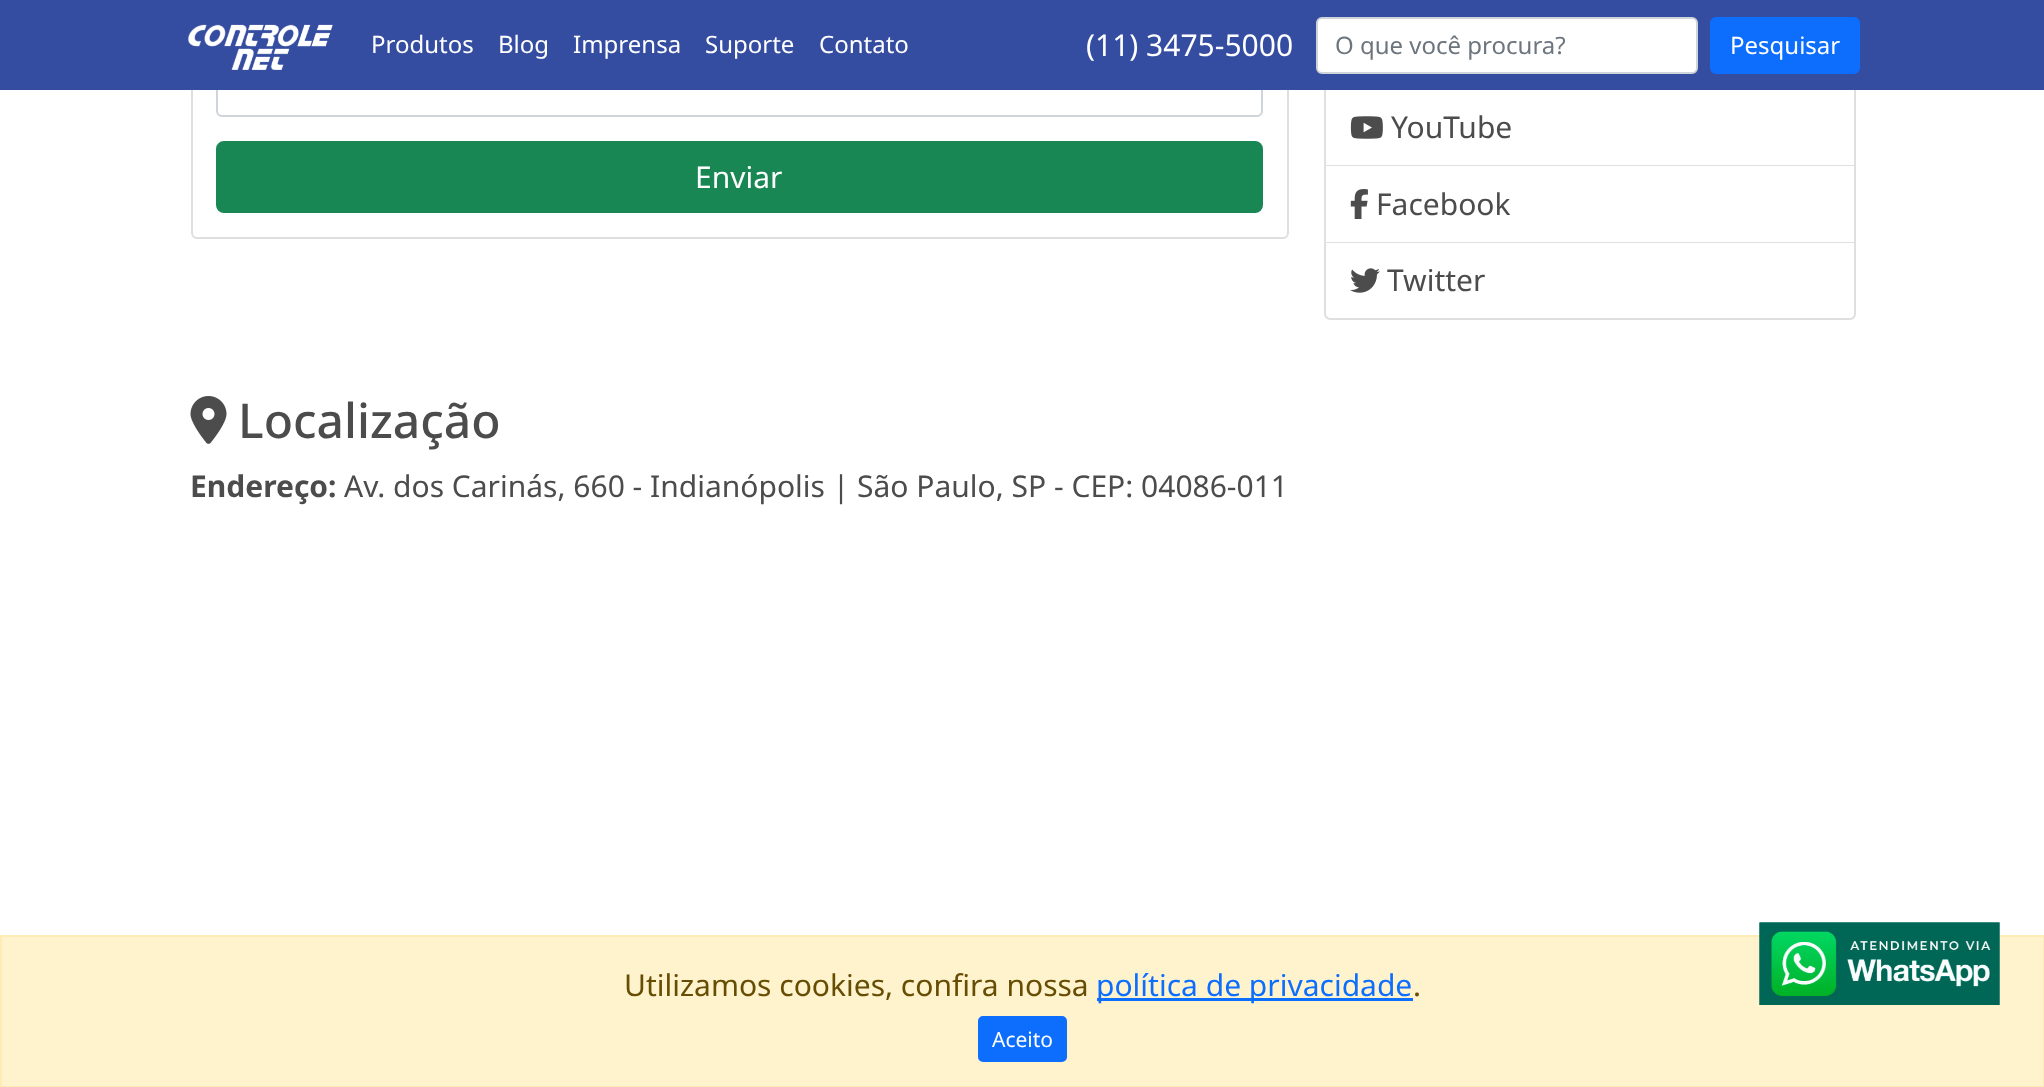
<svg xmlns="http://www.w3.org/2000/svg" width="2044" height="1087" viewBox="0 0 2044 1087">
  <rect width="100%" height="100%" fill="#ffffff"/>
  <rect x="192" y="-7" width="1096" height="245" rx="5" fill="none" stroke="#dfdfdf" stroke-width="2"/>
  <rect x="217" y="-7" width="1045" height="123" rx="5" fill="none" stroke="#ced4da" stroke-width="2"/>
  <rect x="0" y="0" width="2044" height="90" fill="#354da1"/>
  <image x="188" y="24" width="145" height="46" href="img1.png"/>
  <text x="371" y="53" font-family="Noto Sans" font-size="24" fill="#ffffff">Produtos</text>
  <text x="498" y="53" font-family="Noto Sans" font-size="24" fill="#ffffff">Blog</text>
  <text x="573" y="53" font-family="Noto Sans" font-size="24" fill="#ffffff">Imprensa</text>
  <text x="705" y="53" font-family="Noto Sans" font-size="24" fill="#ffffff">Suporte</text>
  <text x="819" y="53" font-family="Noto Sans" font-size="24" fill="#ffffff">Contato</text>
  <text x="1086" y="56" font-family="Noto Sans" font-size="30" fill="#ffffff">(11) 3475-5000</text>
  <rect x="1317" y="18" width="380" height="55" rx="5" fill="#ffffff" stroke="#ced4da" stroke-width="2"/>
  <text x="1335" y="54" font-family="Noto Sans" font-size="24" fill="#6c757d">O que você procura?</text>
  <rect x="1711" y="18" width="148" height="55" rx="5" fill="#0d6efd" stroke="#0d6efd" stroke-width="2"/>
  <text x="1730" y="54" font-family="Noto Sans" font-size="24" fill="#ffffff">Pesquisar</text>
  <rect x="217" y="142" width="1045" height="70" rx="7" fill="#198754" stroke="#198754" stroke-width="2"/>
  <text x="695" y="188" font-family="Noto Sans" font-size="30" fill="#ffffff">Enviar</text>
  <path d="M1856 90V166L1854 165V90Z" fill="#dfdfdf"/>
  <path d="M1856 166H1324L1326 165H1854Z" fill="#000000" fill-opacity="0.12"/>
  <path d="M1324 166V90H1326V165Z" fill="#000000" fill-opacity="0.12"/>
  <image x="1350" y="116" width="33" height="23" href="img2.png"/>
  <text x="1391" y="138" font-family="Noto Sans" font-size="30" fill="#4d4c4c">YouTube</text>
  <path d="M1856 166V243L1854 242V166Z" fill="#dfdfdf"/>
  <path d="M1856 243H1324L1326 242H1854Z" fill="#000000" fill-opacity="0.12"/>
  <path d="M1324 243V166H1326V242Z" fill="#000000" fill-opacity="0.12"/>
  <image x="1350" y="189" width="18" height="30" href="img3.png"/>
  <text x="1376" y="215" font-family="Noto Sans" font-size="30" fill="#4d4c4c">Facebook</text>
  <path d="M1324 243H1856V314C1856 317 1853 320 1850 320H1330C1327 320 1324 317 1324 314ZM1326 243H1854V314C1854 316 1852 318 1850 318H1330C1328 318 1326 316 1326 314Z" fill="#dfdfdf" fill-rule="evenodd"/>
  <image x="1350" y="268" width="30" height="25" href="img4.png"/>
  <text x="1387" y="291" font-family="Noto Sans" font-size="30" fill="#4d4c4c">Twitter</text>
  <image x="190" y="396" width="37" height="48" href="img5.png"/>
  <text x="238" y="438" font-family="Noto Sans" font-size="48" font-weight="500" fill="#4d4c4c">Localização</text>
  <text x="190" y="497" font-family="Noto Sans" font-size="30" font-weight="bold" fill="#4d4c4c">Endereço:</text>
  <text x="344" y="497" font-family="Noto Sans" font-size="30" fill="#4d4c4c">Av. dos Carinás, 660 - Indianópolis | São Paulo, SP - CEP: 04086-011</text>
  <rect x="1" y="936" width="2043" height="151" fill="#fff3cd" stroke="#ffecb5" stroke-width="2"/>
  <image x="1759" y="922" width="241" height="83" href="img6.png"/>
  <text x="624" y="996" font-family="Noto Sans" font-size="30" fill="#664d03">Utilizamos cookies, confira nossa</text>
  <rect x="1097" y="998" width="316" height="3" fill="#0d6efd"/>
  <text x="1096" y="996" font-family="Noto Sans" font-size="30" fill="#0d6efd">política de privacidade</text>
  <text x="1413" y="996" font-family="Noto Sans" font-size="30" fill="#664d03">.</text>
  <rect x="979" y="1017" width="87" height="44" rx="4" fill="#0d6efd" stroke="#0d6efd" stroke-width="2"/>
  <text x="992" y="1047" font-family="Noto Sans" font-size="21" fill="#ffffff">Aceito</text>
  <image x="1759" y="922" width="241" height="83" href="img7.png"/>
</svg>
